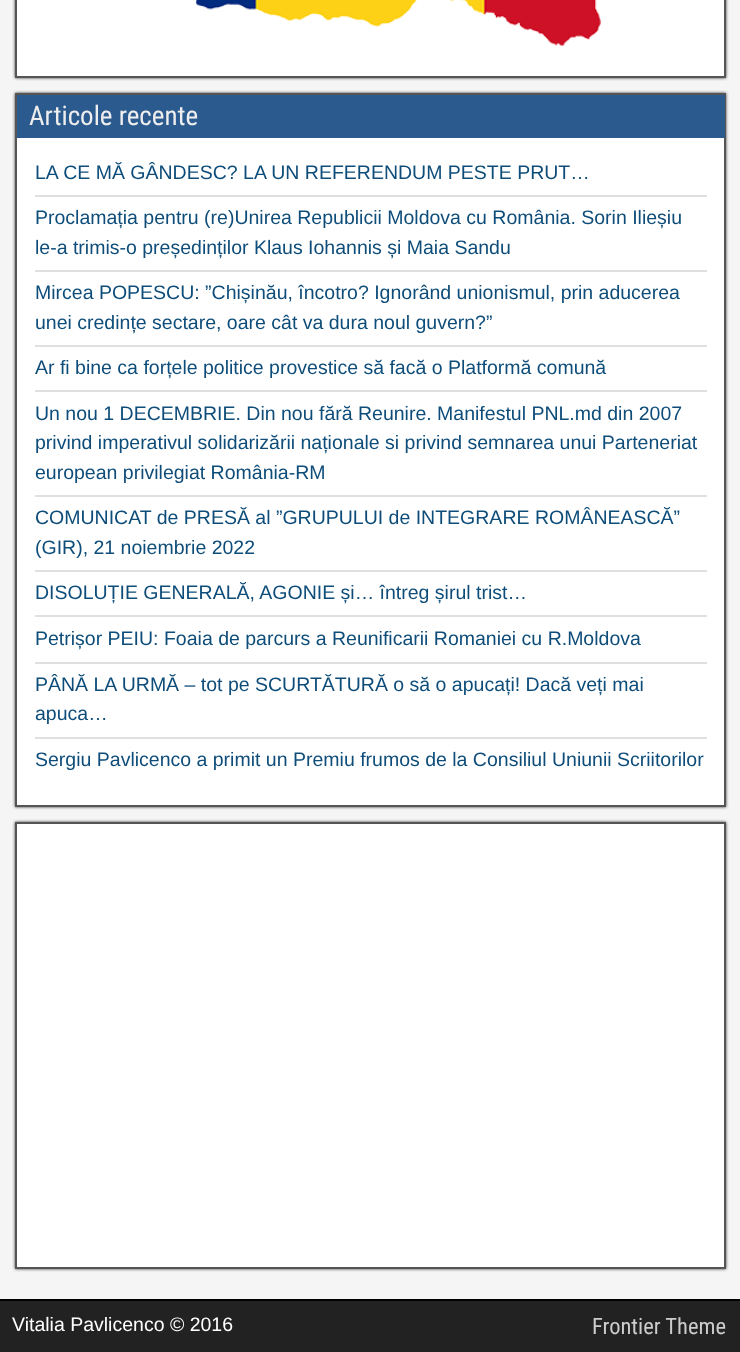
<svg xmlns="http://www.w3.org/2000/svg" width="740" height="1352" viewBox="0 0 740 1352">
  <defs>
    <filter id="blur1" x="-50%" y="-200%" width="200%" height="500%"><feGaussianBlur stdDeviation="1.5"/></filter>
  </defs>
  <rect width="100%" height="100%" fill="#f5f5f5"/>
  <rect x="15" y="-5" width="711" height="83" fill="#333333" filter="url(#blur1)"/>
  <rect x="16" y="-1" width="709" height="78" fill="#ffffff" stroke="#555555" stroke-width="2"/>
  <image x="195" y="0" width="406" height="46" href="img1.png"/>
  <rect x="15" y="93" width="711" height="714" fill="#333333" filter="url(#blur1)"/>
  <rect x="17" y="138" width="707" height="667" fill="#ffffff"/>
  <rect x="16" y="94" width="709" height="712" fill="none" stroke="#555555" stroke-width="2"/>
  <rect x="17" y="95" width="708" height="43" fill="#2a5a8e"/>
  <text x="29" y="125" font-family="Roboto Condensed" font-size="27" fill="#eeeeee">Articole recente</text>
  <rect x="35" y="195" width="672" height="2" fill="#e0e0e0"/>
  <text x="35" y="179" font-family="Liberation Sans" font-size="19.5" fill="#0e4d7a">LA CE MĂ GÂNDESC? LA UN REFERENDUM PESTE PRUT…</text>
  <rect x="35" y="270" width="672" height="2" fill="#e0e0e0"/>
  <text x="35" y="224" font-family="Liberation Sans" font-size="19.5" fill="#0e4d7a">Proclamația pentru (re)Unirea Republicii Moldova cu România. Sorin Ilieșiu</text>
  <text x="35" y="254" font-family="Liberation Sans" font-size="19.5" fill="#0e4d7a">le-a trimis-o președinților Klaus Iohannis și Maia Sandu</text>
  <rect x="35" y="345" width="672" height="2" fill="#e0e0e0"/>
  <text x="35" y="299" font-family="Liberation Sans" font-size="19.5" fill="#0e4d7a">Mircea POPESCU: ”Chișinău, încotro? Ignorând unionismul, prin aducerea</text>
  <text x="35" y="329" font-family="Liberation Sans" font-size="19.5" fill="#0e4d7a">unei credințe sectare, oare cât va dura noul guvern?”</text>
  <rect x="35" y="390" width="672" height="2" fill="#e0e0e0"/>
  <text x="35" y="374" font-family="Liberation Sans" font-size="19.5" fill="#0e4d7a">Ar fi bine ca forțele politice provestice să facă o Platformă comună</text>
  <rect x="35" y="495" width="672" height="2" fill="#e0e0e0"/>
  <text x="35" y="420" font-family="Liberation Sans" font-size="19.5" fill="#0e4d7a">Un nou 1 DECEMBRIE. Din nou fără Reunire. Manifestul PNL.md din 2007</text>
  <text x="35" y="449" font-family="Liberation Sans" font-size="19.5" fill="#0e4d7a">privind imperativul solidarizării naționale si privind semnarea unui Parteneriat</text>
  <text x="35" y="479" font-family="Liberation Sans" font-size="19.5" fill="#0e4d7a">european privilegiat România-RM</text>
  <rect x="35" y="570" width="672" height="2" fill="#e0e0e0"/>
  <text x="35" y="524" font-family="Liberation Sans" font-size="19.5" fill="#0e4d7a">COMUNICAT de PRESĂ al ”GRUPULUI de INTEGRARE ROMÂNEASCĂ”</text>
  <text x="35" y="554" font-family="Liberation Sans" font-size="19.5" fill="#0e4d7a">(GIR), 21 noiembrie 2022</text>
  <rect x="35" y="615" width="672" height="2" fill="#e0e0e0"/>
  <text x="35" y="599" font-family="Liberation Sans" font-size="19.5" fill="#0e4d7a">DISOLUȚIE GENERALĂ, AGONIE și… întreg șirul trist…</text>
  <rect x="35" y="662" width="672" height="2" fill="#e0e0e0"/>
  <text x="35" y="645" font-family="Liberation Sans" font-size="19.5" fill="#0e4d7a">Petrișor PEIU: Foaia de parcurs a Reunificarii Romaniei cu R.Moldova</text>
  <rect x="35" y="737" width="672" height="2" fill="#e0e0e0"/>
  <text x="35" y="691" font-family="Liberation Sans" font-size="19.5" fill="#0e4d7a">PÂNĂ LA URMĂ – tot pe SCURTĂTURĂ o să o apucați! Dacă veți mai</text>
  <text x="35" y="720" font-family="Liberation Sans" font-size="19.5" fill="#0e4d7a">apuca…</text>
  <text x="35" y="766" font-family="Liberation Sans" font-size="19.5" fill="#0e4d7a">Sergiu Pavlicenco a primit un Premiu frumos de la Consiliul Uniunii Scriitorilor</text>
  <rect x="15" y="822" width="711" height="447" fill="#333333" filter="url(#blur1)"/>
  <rect x="16" y="823" width="709" height="445" fill="#ffffff" stroke="#555555" stroke-width="2"/>
  <rect x="0" y="1301" width="740" height="51" fill="#222222"/>
  <rect x="0" y="1299" width="740" height="2" fill="#000000"/>
  <text x="12" y="1331" font-family="Liberation Sans" font-size="19.5" fill="#ffffff">Vitalia Pavlicenco © 2016</text>
  <text x="592" y="1334" font-family="Roboto Condensed" font-size="22.5" fill="#cccccc">Frontier Theme</text>
</svg>
